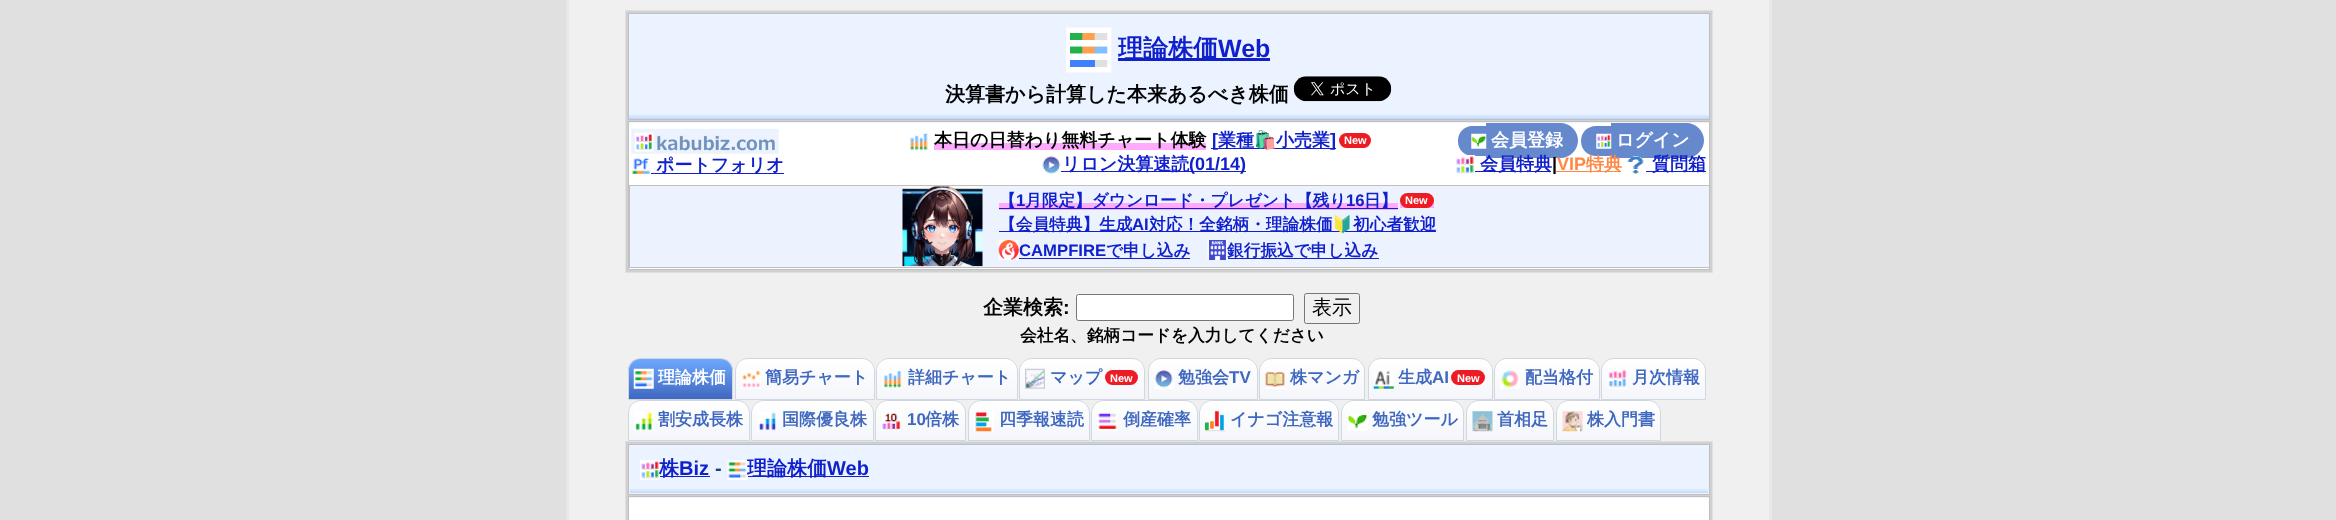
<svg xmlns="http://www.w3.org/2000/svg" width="2336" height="520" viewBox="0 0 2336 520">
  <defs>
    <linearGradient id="g1" gradientUnits="userSpaceOnUse" x1="1169" y1="14" x2="1169" y2="119"><stop offset="0" stop-color="#eaf3ff"/><stop offset="0.95" stop-color="#eaf3ff"/><stop offset="1" stop-color="#c0d8ff"/></linearGradient>
    <clipPath id="clip1"><rect x="629" y="123" width="1080" height="146"/></clipPath>
    <clipPath id="clip2"><path d="M641 358H720C727 358 733 364 733 371V400H628V371C628 364 634 358 641 358Z"/></clipPath>
    <linearGradient id="g2" gradientUnits="userSpaceOnUse" x1="680" y1="359" x2="680" y2="399"><stop offset="0" stop-color="#6fa8ff"/><stop offset="1" stop-color="#4068c0"/></linearGradient>
    <clipPath id="clip3"><path d="M748 358H862C869 358 875 364 875 371V400H735V371C735 364 741 358 748 358Z"/></clipPath>
    <linearGradient id="g3" gradientUnits="userSpaceOnUse" x1="805" y1="359" x2="805" y2="399"><stop offset="0" stop-color="#ffffff"/><stop offset="1" stop-color="#f4f6fa"/></linearGradient>
    <clipPath id="clip4"><path d="M889 358H1005C1012 358 1018 364 1018 371V400H876V371C876 364 882 358 889 358Z"/></clipPath>
    <linearGradient id="g4" gradientUnits="userSpaceOnUse" x1="947" y1="359" x2="947" y2="399"><stop offset="0" stop-color="#ffffff"/><stop offset="1" stop-color="#f4f6fa"/></linearGradient>
    <clipPath id="clip5"><path d="M1032 358H1132C1139 358 1145 364 1145 371V400H1019V371C1019 364 1025 358 1032 358Z"/></clipPath>
    <linearGradient id="g5" gradientUnits="userSpaceOnUse" x1="1082" y1="359" x2="1082" y2="399"><stop offset="0" stop-color="#ffffff"/><stop offset="1" stop-color="#f4f6fa"/></linearGradient>
    <clipPath id="clip6"><path d="M1161 358H1245C1252 358 1258 364 1258 371V400H1148V371C1148 364 1154 358 1161 358Z"/></clipPath>
    <linearGradient id="g6" gradientUnits="userSpaceOnUse" x1="1203" y1="359" x2="1203" y2="399"><stop offset="0" stop-color="#ffffff"/><stop offset="1" stop-color="#f4f6fa"/></linearGradient>
    <clipPath id="clip7"><path d="M1272 358H1352C1359 358 1365 364 1365 371V400H1259V371C1259 364 1265 358 1272 358Z"/></clipPath>
    <linearGradient id="g7" gradientUnits="userSpaceOnUse" x1="1312" y1="359" x2="1312" y2="399"><stop offset="0" stop-color="#ffffff"/><stop offset="1" stop-color="#f4f6fa"/></linearGradient>
    <clipPath id="clip8"><path d="M1381 358H1480C1487 358 1493 364 1493 371V400H1368V371C1368 364 1374 358 1381 358Z"/></clipPath>
    <linearGradient id="g8" gradientUnits="userSpaceOnUse" x1="1430" y1="359" x2="1430" y2="399"><stop offset="0" stop-color="#ffffff"/><stop offset="1" stop-color="#f4f6fa"/></linearGradient>
    <clipPath id="clip9"><path d="M1507 358H1587C1594 358 1600 364 1600 371V400H1494V371C1494 364 1500 358 1507 358Z"/></clipPath>
    <linearGradient id="g9" gradientUnits="userSpaceOnUse" x1="1547" y1="359" x2="1547" y2="399"><stop offset="0" stop-color="#ffffff"/><stop offset="1" stop-color="#f4f6fa"/></linearGradient>
    <clipPath id="clip10"><path d="M1614 358H1693C1700 358 1706 364 1706 371V400H1601V371C1601 364 1607 358 1614 358Z"/></clipPath>
    <linearGradient id="g10" gradientUnits="userSpaceOnUse" x1="1654" y1="359" x2="1654" y2="399"><stop offset="0" stop-color="#ffffff"/><stop offset="1" stop-color="#f4f6fa"/></linearGradient>
    <clipPath id="clip11"><path d="M641 400H737C744 400 750 406 750 413V441H628V413C628 406 634 400 641 400Z"/></clipPath>
    <linearGradient id="g11" gradientUnits="userSpaceOnUse" x1="689" y1="401" x2="689" y2="440"><stop offset="0" stop-color="#ffffff"/><stop offset="1" stop-color="#f4f6fa"/></linearGradient>
    <clipPath id="clip12"><path d="M764 400H861C868 400 874 406 874 413V441H751V413C751 406 757 400 764 400Z"/></clipPath>
    <linearGradient id="g12" gradientUnits="userSpaceOnUse" x1="813" y1="401" x2="813" y2="440"><stop offset="0" stop-color="#ffffff"/><stop offset="1" stop-color="#f4f6fa"/></linearGradient>
    <clipPath id="clip13"><path d="M888 400H953C960 400 966 406 966 413V441H875V413C875 406 881 400 888 400Z"/></clipPath>
    <linearGradient id="g13" gradientUnits="userSpaceOnUse" x1="921" y1="401" x2="921" y2="440"><stop offset="0" stop-color="#ffffff"/><stop offset="1" stop-color="#f4f6fa"/></linearGradient>
    <clipPath id="clip14"><path d="M981 400H1077C1084 400 1090 406 1090 413V441H968V413C968 406 974 400 981 400Z"/></clipPath>
    <linearGradient id="g14" gradientUnits="userSpaceOnUse" x1="1029" y1="401" x2="1029" y2="440"><stop offset="0" stop-color="#ffffff"/><stop offset="1" stop-color="#f4f6fa"/></linearGradient>
    <clipPath id="clip15"><path d="M1104 400H1185C1192 400 1198 406 1198 413V441H1091V413C1091 406 1097 400 1104 400Z"/></clipPath>
    <linearGradient id="g15" gradientUnits="userSpaceOnUse" x1="1144" y1="401" x2="1144" y2="440"><stop offset="0" stop-color="#ffffff"/><stop offset="1" stop-color="#f4f6fa"/></linearGradient>
    <clipPath id="clip16"><path d="M1212 400H1326C1333 400 1339 406 1339 413V441H1199V413C1199 406 1205 400 1212 400Z"/></clipPath>
    <linearGradient id="g16" gradientUnits="userSpaceOnUse" x1="1269" y1="401" x2="1269" y2="440"><stop offset="0" stop-color="#ffffff"/><stop offset="1" stop-color="#f4f6fa"/></linearGradient>
    <clipPath id="clip17"><path d="M1354 400H1451C1458 400 1464 406 1464 413V441H1341V413C1341 406 1347 400 1354 400Z"/></clipPath>
    <linearGradient id="g17" gradientUnits="userSpaceOnUse" x1="1403" y1="401" x2="1403" y2="440"><stop offset="0" stop-color="#ffffff"/><stop offset="1" stop-color="#f4f6fa"/></linearGradient>
    <clipPath id="clip18"><path d="M1479 400H1541C1548 400 1554 406 1554 413V441H1466V413C1466 406 1472 400 1479 400Z"/></clipPath>
    <linearGradient id="g18" gradientUnits="userSpaceOnUse" x1="1510" y1="401" x2="1510" y2="440"><stop offset="0" stop-color="#ffffff"/><stop offset="1" stop-color="#f4f6fa"/></linearGradient>
    <clipPath id="clip19"><path d="M1569 400H1648C1655 400 1661 406 1661 413V441H1556V413C1556 406 1562 400 1569 400Z"/></clipPath>
    <linearGradient id="g19" gradientUnits="userSpaceOnUse" x1="1609" y1="401" x2="1609" y2="440"><stop offset="0" stop-color="#ffffff"/><stop offset="1" stop-color="#f4f6fa"/></linearGradient>
    <linearGradient id="g20" gradientUnits="userSpaceOnUse" x1="1169" y1="446" x2="1169" y2="493"><stop offset="0" stop-color="#eaf3ff"/><stop offset="0.9" stop-color="#eaf3ff"/><stop offset="1" stop-color="#c0d8ff"/></linearGradient>
  </defs>
  <rect width="100%" height="100%" fill="#e0e0e0"/>
  <rect x="569" y="0" width="1200" height="520" fill="#f0f0f0"/>
  <rect x="1769" y="0" width="3" height="520" fill="#e8e8e8"/>
  <rect x="566" y="0" width="3" height="520" fill="#e8e8e8"/>
  <rect x="625.5" y="10.5" width="1087" height="262" fill="#d0d0d0" stroke="#e0e0e0"/>
  <rect x="629" y="14" width="1080" height="105" fill="url(#g1)"/>
  <rect x="628.5" y="13.5" width="1081" height="106" fill="none" stroke="#c0c0c0"/>
  <image x="1066" y="27" width="46" height="46" href="img1.png"/>
  <rect x="1118" y="58" width="152" height="3" fill="#1020cc"/>
  <text x="1118" y="57" font-family="WenQuanYi Zen Hei" font-size="25" font-weight="bold" fill="#1020cc">理論株価</text>
  <text x="1218" y="57" font-family="Liberation Sans" font-size="25" font-weight="bold" fill="#1020cc">Web</text>
  <text x="945" y="101" font-family="WenQuanYi Zen Hei" font-size="20" font-weight="bold" fill="#000000">決算書から計算した本来あるべき株価</text>
  <image x="1293" y="76" width="99" height="26" href="img2.png"/>
  <rect x="629" y="122" width="1080" height="1" fill="#edf3fe"/>
  <rect x="628.5" y="121.5" width="1081" height="148" fill="none" stroke="#c0c0c0"/>
  <rect x="629" y="123" width="1080" height="146" fill="#ffffff"/>
  <image x="631" y="128" width="148" height="26" href="img3.png"/>
  <image x="632" y="158" width="19" height="17" href="img4.png"/>
  <rect x="651" y="173" width="133" height="1" fill="#1020cc"/>
  <text x="656" y="171" font-family="WenQuanYi Zen Hei" font-size="18" font-weight="bold" fill="#1020cc">ポートフォリオ</text>
  <image x="909" y="133" width="19" height="18" href="img5.png"/>
  <rect x="934" y="143" width="272" height="7" fill="#ffaaff"/>
  <text x="934" y="146" font-family="WenQuanYi Zen Hei" font-size="18" font-weight="bold" fill="#000000">本日の日替わり無料チャート体験</text>
  <rect x="1211" y="148" width="125" height="1" fill="#1020cc"/>
  <text x="1212" y="146" font-family="Liberation Sans" font-size="18" font-weight="bold" fill="#1020cc">[</text>
  <text x="1218" y="146" font-family="WenQuanYi Zen Hei" font-size="18" font-weight="bold" fill="#1020cc">業種</text>
  <text x="1254" y="146" font-family="Noto Color Emoji" font-size="18" font-weight="bold" fill="#1020cc">🛍️</text>
  <text x="1276" y="146" font-family="WenQuanYi Zen Hei" font-size="18" font-weight="bold" fill="#1020cc">小売業</text>
  <text x="1330" y="146" font-family="Liberation Sans" font-size="18" font-weight="bold" fill="#1020cc">]</text>
  <rect x="1339" y="133" width="32" height="15" rx="7.5" fill="#ed1c24"/>
  <text x="1344" y="144" font-family="Liberation Sans" font-size="11" font-weight="bold" fill="#ffffff">New</text>
  <image x="1042" y="156" width="19" height="18" href="img6.png"/>
  <rect x="1061" y="171" width="185" height="1" fill="#1020cc"/>
  <text x="1062" y="170" font-family="WenQuanYi Zen Hei" font-size="18" font-weight="bold" fill="#1020cc">リロン決算速読</text>
  <text x="1189" y="170" font-family="Liberation Sans" font-size="18" font-weight="bold" fill="#1020cc">(01/14)</text>
  <path d="M1472 126H1486V156H1472C1464.5 156 1458 149.5 1458 142V140C1458 132.5 1464.5 126 1472 126Z" fill="#6688cc"/>
  <path d="M1486 123H1560.5C1570 123 1578 131 1578 140.5C1578 150 1570 158 1560.5 158H1486Z" fill="#6688cc"/>
  <image x="1471" y="133" width="16" height="16" href="img7.png"/>
  <text x="1491" y="146" font-family="WenQuanYi Zen Hei" font-size="18" font-weight="bold" fill="#ffffff">会員登録</text>
  <path d="M1596 126H1611V156H1596C1587.5 156 1581 149.5 1581 141C1581 132.5 1587.5 126 1596 126Z" fill="#6688cc"/>
  <path d="M1611 123H1686.5C1696 123 1704 131 1704 140.5C1704 150 1696 158 1686.5 158H1611Z" fill="#6688cc"/>
  <image x="1596" y="133" width="16" height="16" href="img8.png"/>
  <text x="1616" y="146" font-family="WenQuanYi Zen Hei" font-size="18" font-weight="bold" fill="#ffffff">ログイン</text>
  <image x="1456" y="155" width="19" height="19" href="img9.png"/>
  <rect x="1475" y="171" width="76" height="1" fill="#1020cc"/>
  <text x="1480" y="170" font-family="WenQuanYi Zen Hei" font-size="18" font-weight="bold" fill="#1020cc">会員特典</text>
  <text x="1552" y="170" font-family="Liberation Sans" font-size="18" font-weight="bold" fill="#000000">|</text>
  <text x="1557" y="170" font-family="Liberation Sans" font-size="18" font-weight="bold" fill="#ff8844">VIP</text>
  <rect x="1556" y="171" width="65" height="1" fill="#ff8844"/>
  <text x="1586" y="170" font-family="WenQuanYi Zen Hei" font-size="18" font-weight="bold" fill="#ff8844">特典</text>
  <image x="1627" y="156" width="17" height="18" href="img10.png"/>
  <rect x="1646" y="171" width="60" height="1" fill="#1020cc"/>
  <text x="1652" y="170" font-family="WenQuanYi Zen Hei" font-size="18" font-weight="bold" fill="#1020cc">質問箱</text>
  <rect x="630" y="186" width="1079" height="81" fill="#edf3fe"/>
  <g clip-path="url(#clip1)">
    <rect x="629.5" y="185.5" width="1081" height="82" fill="none" stroke="#c0c0c0"/>
  </g>
  <image x="902" y="186" width="81" height="81" href="img11.png"/>
  <rect x="999" y="203" width="399" height="7" fill="#ffaaff"/>
  <rect x="1400" y="201" width="34" height="7" fill="#ffaaff"/>
  <text x="999" y="206" font-family="WenQuanYi Zen Hei" font-size="16.7" font-weight="bold" fill="#1020cc">【</text>
  <rect x="999" y="208" width="399" height="1" fill="#1020cc"/>
  <text x="1016" y="206" font-family="Liberation Sans" font-size="16.7" font-weight="bold" fill="#1020cc">1</text>
  <text x="1025" y="206" font-family="WenQuanYi Zen Hei" font-size="16.7" font-weight="bold" fill="#1020cc">月限定】ダウンロード・プレゼント【残り</text>
  <text x="1346" y="206" font-family="Liberation Sans" font-size="16.7" font-weight="bold" fill="#1020cc">16</text>
  <text x="1364" y="206" font-family="WenQuanYi Zen Hei" font-size="16.7" font-weight="bold" fill="#1020cc">日】</text>
  <rect x="1400" y="193" width="34" height="15" rx="7.5" fill="#ed1c24"/>
  <text x="1405" y="204" font-family="Liberation Sans" font-size="11" font-weight="bold" fill="#ffffff">New</text>
  <rect x="999" y="231" width="437" height="1" fill="#1020cc"/>
  <text x="999" y="230" font-family="WenQuanYi Zen Hei" font-size="16.7" font-weight="bold" fill="#1020cc">【会員特典】生成</text>
  <text x="1132" y="230" font-family="Liberation Sans" font-size="16.7" font-weight="bold" fill="#1020cc">AI</text>
  <text x="1149" y="230" font-family="WenQuanYi Zen Hei" font-size="16.7" font-weight="bold" fill="#1020cc">対応！全銘柄・理論株価</text>
  <text x="1332" y="230" font-family="Noto Color Emoji" font-size="16.7" font-weight="bold" fill="#1020cc">🔰</text>
  <text x="1353" y="230" font-family="WenQuanYi Zen Hei" font-size="16.7" font-weight="bold" fill="#1020cc">初心者歓迎</text>
  <image x="998" y="240" width="21" height="20" href="img12.png"/>
  <text x="1019" y="256" font-family="Liberation Sans" font-size="16.7" font-weight="bold" fill="#1020cc">CAMPFIRE</text>
  <rect x="1019" y="258" width="171" height="1" fill="#1020cc"/>
  <text x="1106" y="256" font-family="WenQuanYi Zen Hei" font-size="16.7" font-weight="bold" fill="#1020cc">で申し込み</text>
  <image x="1207" y="240" width="21" height="20" href="img13.png"/>
  <rect x="1228" y="258" width="151" height="1" fill="#1020cc"/>
  <text x="1227" y="256" font-family="WenQuanYi Zen Hei" font-size="16.7" font-weight="bold" fill="#1020cc">銀行振込で申し込み</text>
  <text x="983" y="314" font-family="WenQuanYi Zen Hei" font-size="20" font-weight="bold" fill="#000000">企業検索</text>
  <text x="1063" y="314" font-family="Liberation Sans" font-size="20" font-weight="bold" fill="#000000">:</text>
  <rect x="1076.5" y="294.5" width="217" height="26" rx="2" fill="#ffffff" stroke="#767676"/>
  <rect x="1304.5" y="293.5" width="55" height="30" rx="2" fill="none" stroke="#767676"/>
  <text x="1312" y="314" font-family="WenQuanYi Zen Hei" font-size="20" font-weight="500" fill="#000000">表示</text>
  <text x="1020" y="341" font-family="WenQuanYi Zen Hei" font-size="16.7" font-weight="bold" fill="#000000">会社名、銘柄コードを入力してください</text>
  <g clip-path="url(#clip2)">
    <rect x="628" y="359" width="105" height="40" fill="url(#g2)"/>
  </g>
  <path d="M641 358.5H720C727 358.5 732.5 364 732.5 371V399.5H628.5V371C628.5 364 634 358.5 641 358.5Z" fill="none" stroke="#d0d7e2"/>
  <image x="633" y="368" width="21" height="21" href="img14.png"/>
  <text x="658" y="383" font-family="WenQuanYi Zen Hei" font-size="17" font-weight="bold" fill="#ffffff">理論株価</text>
  <g clip-path="url(#clip3)">
    <rect x="735" y="359" width="140" height="40" fill="url(#g3)"/>
  </g>
  <path d="M748 358.5H862C869 358.5 874.5 364 874.5 371V399.5H735.5V371C735.5 364 741 358.5 748 358.5Z" fill="none" stroke="#d0d7e2"/>
  <image x="741" y="370" width="20" height="19" href="img15.png"/>
  <text x="765" y="383" font-family="WenQuanYi Zen Hei" font-size="17" font-weight="bold" fill="#4068c0">簡易チャート</text>
  <g clip-path="url(#clip4)">
    <rect x="876" y="359" width="142" height="40" fill="url(#g4)"/>
  </g>
  <path d="M889 358.5H1005C1012 358.5 1017.5 364 1017.5 371V399.5H876.5V371C876.5 364 882 358.5 889 358.5Z" fill="none" stroke="#d0d7e2"/>
  <image x="882" y="371" width="21" height="18" href="img16.png"/>
  <text x="908" y="383" font-family="WenQuanYi Zen Hei" font-size="17" font-weight="bold" fill="#4068c0">詳細チャート</text>
  <g clip-path="url(#clip5)">
    <rect x="1019" y="359" width="126" height="40" fill="url(#g5)"/>
  </g>
  <path d="M1032 358.5H1132C1139 358.5 1144.5 364 1144.5 371V399.5H1019.5V371C1019.5 364 1025 358.5 1032 358.5Z" fill="none" stroke="#d0d7e2"/>
  <image x="1025" y="368" width="20" height="21" href="img17.png"/>
  <text x="1050" y="383" font-family="WenQuanYi Zen Hei" font-size="17" font-weight="bold" fill="#4068c0">マップ</text>
  <rect x="1105" y="370" width="33" height="15" rx="7.5" fill="#ed1c24"/>
  <text x="1110" y="382" font-family="Liberation Sans" font-size="11" font-weight="bold" fill="#ffffff">New</text>
  <g clip-path="url(#clip6)">
    <rect x="1148" y="359" width="110" height="40" fill="url(#g6)"/>
  </g>
  <path d="M1161 358.5H1245C1252 358.5 1257.5 364 1257.5 371V399.5H1148.5V371C1148.5 364 1154 358.5 1161 358.5Z" fill="none" stroke="#d0d7e2"/>
  <image x="1154" y="370" width="20" height="19" href="img18.png"/>
  <text x="1178" y="383" font-family="WenQuanYi Zen Hei" font-size="17" font-weight="bold" fill="#4068c0">勉強会</text>
  <text x="1229" y="383" font-family="Liberation Sans" font-size="17" font-weight="bold" fill="#4068c0">TV</text>
  <g clip-path="url(#clip7)">
    <rect x="1259" y="359" width="106" height="40" fill="url(#g7)"/>
  </g>
  <path d="M1272 358.5H1352C1359 358.5 1364.5 364 1364.5 371V399.5H1259.5V371C1259.5 364 1265 358.5 1272 358.5Z" fill="none" stroke="#d0d7e2"/>
  <image x="1265" y="371" width="20" height="18" href="img19.png"/>
  <text x="1290" y="383" font-family="WenQuanYi Zen Hei" font-size="17" font-weight="bold" fill="#4068c0">株マンガ</text>
  <g clip-path="url(#clip8)">
    <rect x="1368" y="359" width="125" height="40" fill="url(#g8)"/>
  </g>
  <path d="M1381 358.5H1480C1487 358.5 1492.5 364 1492.5 371V399.5H1368.5V371C1368.5 364 1374 358.5 1381 358.5Z" fill="none" stroke="#d0d7e2"/>
  <image x="1373" y="371" width="21" height="18" href="img20.png"/>
  <text x="1398" y="383" font-family="WenQuanYi Zen Hei" font-size="17" font-weight="bold" fill="#4068c0">生成</text>
  <text x="1432" y="383" font-family="Liberation Sans" font-size="17" font-weight="bold" fill="#4068c0">AI</text>
  <rect x="1451" y="370" width="34" height="15" rx="7.5" fill="#ed1c24"/>
  <text x="1457" y="382" font-family="Liberation Sans" font-size="11" font-weight="bold" fill="#ffffff">New</text>
  <g clip-path="url(#clip9)">
    <rect x="1494" y="359" width="106" height="40" fill="url(#g9)"/>
  </g>
  <path d="M1507 358.5H1587C1594 358.5 1599.5 364 1599.5 371V399.5H1494.5V371C1494.5 364 1500 358.5 1507 358.5Z" fill="none" stroke="#d0d7e2"/>
  <image x="1500" y="370" width="20" height="19" href="img21.png"/>
  <text x="1525" y="383" font-family="WenQuanYi Zen Hei" font-size="17" font-weight="bold" fill="#4068c0">配当格付</text>
  <g clip-path="url(#clip10)">
    <rect x="1601" y="359" width="105" height="40" fill="url(#g10)"/>
  </g>
  <path d="M1614 358.5H1693C1700 358.5 1705.5 364 1705.5 371V399.5H1601.5V371C1601.5 364 1607 358.5 1614 358.5Z" fill="none" stroke="#d0d7e2"/>
  <image x="1607" y="370" width="21" height="19" href="img22.png"/>
  <text x="1632" y="383" font-family="WenQuanYi Zen Hei" font-size="17" font-weight="bold" fill="#4068c0">月次情報</text>
  <g clip-path="url(#clip11)">
    <rect x="628" y="401" width="122" height="39" fill="url(#g11)"/>
  </g>
  <path d="M641 400.5H737C744 400.5 749.5 406 749.5 413V440.5H628.5V413C628.5 406 634 400.5 641 400.5Z" fill="none" stroke="#d0d7e2"/>
  <image x="634" y="412" width="20" height="19" href="img23.png"/>
  <text x="658" y="425" font-family="WenQuanYi Zen Hei" font-size="17" font-weight="bold" fill="#4068c0">割安成長株</text>
  <g clip-path="url(#clip12)">
    <rect x="751" y="401" width="123" height="39" fill="url(#g12)"/>
  </g>
  <path d="M764 400.5H861C868 400.5 873.5 406 873.5 413V440.5H751.5V413C751.5 406 757 400.5 764 400.5Z" fill="none" stroke="#d0d7e2"/>
  <image x="757" y="412" width="21" height="19" href="img24.png"/>
  <text x="782" y="425" font-family="WenQuanYi Zen Hei" font-size="17" font-weight="bold" fill="#4068c0">国際優良株</text>
  <g clip-path="url(#clip13)">
    <rect x="875" y="401" width="91" height="39" fill="url(#g13)"/>
  </g>
  <path d="M888 400.5H953C960 400.5 965.5 406 965.5 413V440.5H875.5V413C875.5 406 881 400.5 888 400.5Z" fill="none" stroke="#d0d7e2"/>
  <image x="881" y="413" width="20" height="18" href="img25.png"/>
  <text x="907" y="425" font-family="Liberation Sans" font-size="17" font-weight="bold" fill="#4068c0">10</text>
  <text x="925" y="425" font-family="WenQuanYi Zen Hei" font-size="17" font-weight="bold" fill="#4068c0">倍株</text>
  <g clip-path="url(#clip14)">
    <rect x="968" y="401" width="122" height="39" fill="url(#g14)"/>
  </g>
  <path d="M981 400.5H1077C1084 400.5 1089.5 406 1089.5 413V440.5H968.5V413C968.5 406 974 400.5 981 400.5Z" fill="none" stroke="#d0d7e2"/>
  <image x="974" y="412" width="20" height="20" href="img26.png"/>
  <text x="999" y="425" font-family="WenQuanYi Zen Hei" font-size="17" font-weight="bold" fill="#4068c0">四季報速読</text>
  <g clip-path="url(#clip15)">
    <rect x="1091" y="401" width="107" height="39" fill="url(#g15)"/>
  </g>
  <path d="M1104 400.5H1185C1192 400.5 1197.5 406 1197.5 413V440.5H1091.5V413C1091.5 406 1097 400.5 1104 400.5Z" fill="none" stroke="#d0d7e2"/>
  <image x="1097" y="413" width="21" height="18" href="img27.png"/>
  <text x="1123" y="425" font-family="WenQuanYi Zen Hei" font-size="17" font-weight="bold" fill="#4068c0">倒産確率</text>
  <g clip-path="url(#clip16)">
    <rect x="1199" y="401" width="140" height="39" fill="url(#g16)"/>
  </g>
  <path d="M1212 400.5H1326C1333 400.5 1338.5 406 1338.5 413V440.5H1199.5V413C1199.5 406 1205 400.5 1212 400.5Z" fill="none" stroke="#d0d7e2"/>
  <image x="1205" y="411" width="20" height="21" href="img28.png"/>
  <text x="1230" y="425" font-family="WenQuanYi Zen Hei" font-size="17" font-weight="bold" fill="#4068c0">イナゴ注意報</text>
  <g clip-path="url(#clip17)">
    <rect x="1341" y="401" width="123" height="39" fill="url(#g17)"/>
  </g>
  <path d="M1354 400.5H1451C1458 400.5 1463.5 406 1463.5 413V440.5H1341.5V413C1341.5 406 1347 400.5 1354 400.5Z" fill="none" stroke="#d0d7e2"/>
  <image x="1347" y="414" width="21" height="17" href="img29.png"/>
  <text x="1372" y="425" font-family="WenQuanYi Zen Hei" font-size="17" font-weight="bold" fill="#4068c0">勉強ツール</text>
  <g clip-path="url(#clip18)">
    <rect x="1466" y="401" width="88" height="39" fill="url(#g18)"/>
  </g>
  <path d="M1479 400.5H1541C1548 400.5 1553.5 406 1553.5 413V440.5H1466.5V413C1466.5 406 1472 400.5 1479 400.5Z" fill="none" stroke="#d0d7e2"/>
  <image x="1472" y="411" width="21" height="21" href="img30.png"/>
  <text x="1497" y="425" font-family="WenQuanYi Zen Hei" font-size="17" font-weight="bold" fill="#4068c0">首相足</text>
  <g clip-path="url(#clip19)">
    <rect x="1556" y="401" width="105" height="39" fill="url(#g19)"/>
  </g>
  <path d="M1569 400.5H1648C1655 400.5 1660.5 406 1660.5 413V440.5H1556.5V413C1556.5 406 1562 400.5 1569 400.5Z" fill="none" stroke="#d0d7e2"/>
  <image x="1562" y="411" width="21" height="21" href="img31.png"/>
  <text x="1587" y="425" font-family="WenQuanYi Zen Hei" font-size="17" font-weight="bold" fill="#4068c0">株入門書</text>
  <rect x="625.5" y="441.5" width="1087" height="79" fill="#d0d0d0" stroke="#e0e0e0"/>
  <rect x="628.5" y="444.5" width="1081" height="50" fill="#edf3fe" stroke="#c0c0c0"/>
  <rect x="630" y="446" width="1078" height="47" fill="url(#g20)"/>
  <image x="640" y="460" width="20" height="20" href="img32.png"/>
  <rect x="660" y="476" width="50" height="1" fill="#1020cc"/>
  <text x="659" y="475" font-family="WenQuanYi Zen Hei" font-size="20" font-weight="bold" fill="#1020cc">株</text>
  <text x="679" y="475" font-family="Liberation Sans" font-size="20" font-weight="bold" fill="#1020cc">Biz</text>
  <text x="715" y="475" font-family="Liberation Sans" font-size="20" font-weight="bold" fill="#204080">-</text>
  <image x="727" y="460" width="21" height="20" href="img33.png"/>
  <rect x="748" y="476" width="121" height="1" fill="#1020cc"/>
  <text x="747" y="475" font-family="WenQuanYi Zen Hei" font-size="20" font-weight="bold" fill="#1020cc">理論株価</text>
  <text x="827" y="475" font-family="Liberation Sans" font-size="20" font-weight="bold" fill="#1020cc">Web</text>
  <rect x="629" y="497" width="1080" height="1" fill="#edf3fe"/>
  <rect x="628.5" y="496.5" width="1081" height="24" fill="none" stroke="#c0c0c0"/>
  <rect x="629" y="498" width="1080" height="22" fill="#ffffff"/>
</svg>
